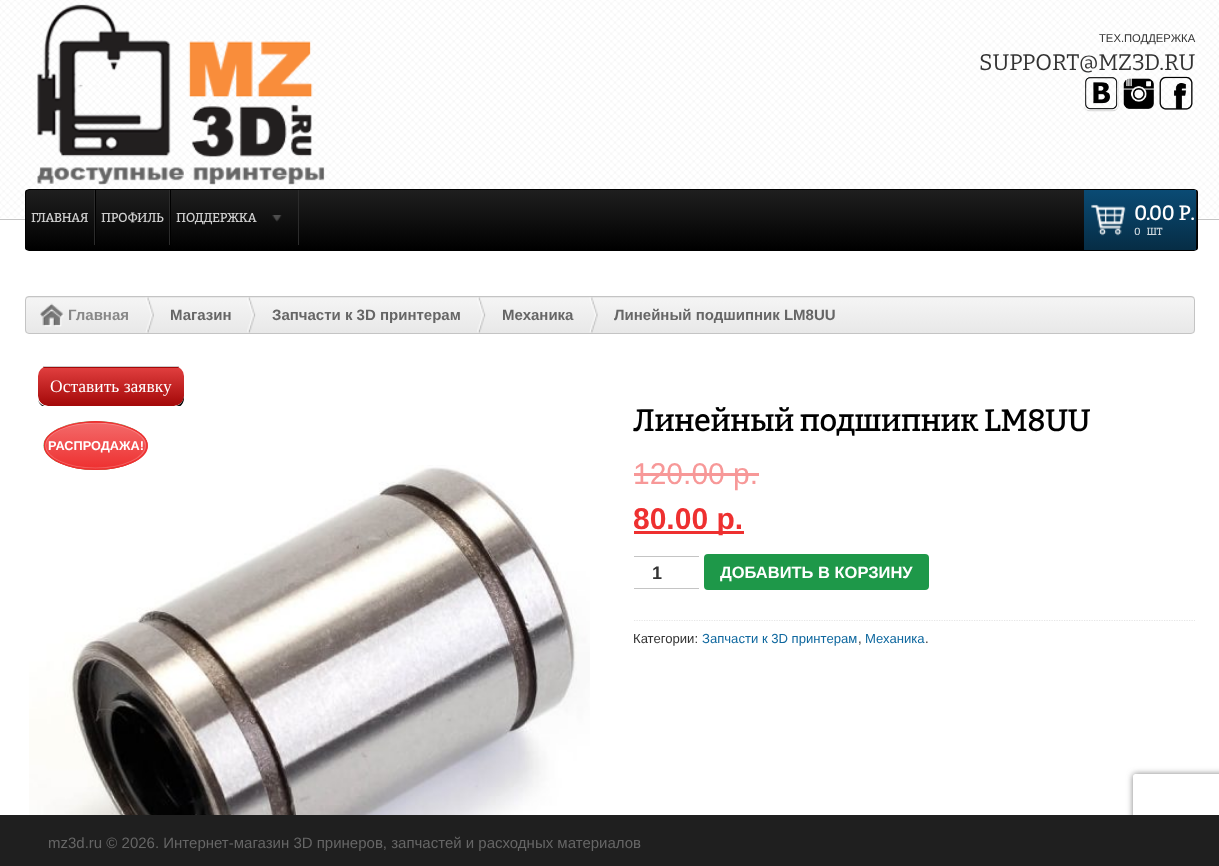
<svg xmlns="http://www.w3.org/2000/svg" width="1219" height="866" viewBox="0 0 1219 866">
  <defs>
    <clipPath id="clip1"><rect x="25" y="189" width="1173" height="62" rx="4"/></clipPath>
    <linearGradient id="g1" gradientUnits="userSpaceOnUse" x1="611" y1="190" x2="611" y2="250"><stop offset="0" stop-color="#1f1f1f"/><stop offset="1" stop-color="#000000"/></linearGradient>
    <linearGradient id="g2" gradientUnits="userSpaceOnUse" x1="1140" y1="190" x2="1140" y2="250"><stop offset="0" stop-color="#0a4b74"/><stop offset="1" stop-color="#062d45"/></linearGradient>
    <clipPath id="clip2"><rect x="25" y="296" width="1170" height="38" rx="4"/></clipPath>
    <linearGradient id="g3" gradientUnits="userSpaceOnUse" x1="610" y1="262" x2="610" y2="298"><stop offset="0" stop-color="#f5f5f5"/><stop offset="1" stop-color="#e8e8e8"/></linearGradient>
    <linearGradient id="g4" gradientUnits="userSpaceOnUse" x1="610" y1="297" x2="610" y2="333"><stop offset="0" stop-color="#f5f5f5"/><stop offset="1" stop-color="#e8e8e8"/></linearGradient>
    <clipPath id="clip3"><rect x="38" y="366" width="146" height="40" rx="10"/></clipPath>
    <linearGradient id="g5" gradientUnits="userSpaceOnUse" x1="38" y1="329" x2="38" y2="368"><stop offset="0" stop-color="#e03e3e"/><stop offset="1" stop-color="#a30808"/></linearGradient>
    <linearGradient id="g6" gradientUnits="userSpaceOnUse" x1="38" y1="368" x2="38" y2="406"><stop offset="0" stop-color="#e03e3e"/><stop offset="1" stop-color="#a30808"/></linearGradient>
    <linearGradient id="g7" gradientUnits="userSpaceOnUse" x1="96" y1="376" x2="96" y2="423"><stop offset="0" stop-color="#f36969"/><stop offset="1" stop-color="#ee3030"/></linearGradient>
    <linearGradient id="g8" gradientUnits="userSpaceOnUse" x1="96" y1="423" x2="96" y2="469"><stop offset="0" stop-color="#f36969"/><stop offset="1" stop-color="#ee3030"/></linearGradient>
    <clipPath id="clip4"><path d="M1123 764H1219V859H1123ZM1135.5 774H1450.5C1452 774 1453 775 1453 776.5V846.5C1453 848 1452 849 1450.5 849H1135.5C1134 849 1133 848 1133 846.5V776.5C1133 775 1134 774 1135.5 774Z" clip-rule="evenodd"/></clipPath>
    <filter id="blur1" x="-50%" y="-200%" width="200%" height="500%"><feGaussianBlur stdDeviation="3"/></filter>
  </defs>
  <rect width="100%" height="100%" fill="#ffffff"/>
  <image x="0" y="0" width="1219" height="218" href="img1.png"/>
  <image x="37" y="4" width="288" height="181" href="img2.png"/>
  <text x="1099" y="42" font-family="Liberation Sans" font-size="11.25" fill="#333333">ТЕХ.ПОДДЕРЖКА</text>
  <text x="979" y="70" font-family="Bitter" font-size="22.5" font-weight="100" fill="#333333">SUPPORT@MZ3D.RU</text>
  <image x="1084" y="77" width="35" height="35" href="img3.png"/>
  <image x="1123" y="78" width="31" height="31" href="img4.png"/>
  <image x="1159" y="76" width="34" height="34" href="img5.png"/>
  <rect x="0" y="219" width="1219" height="1" fill="#c4c4c4"/>
  <g clip-path="url(#clip1)">
    <rect x="25" y="190" width="1173" height="60" fill="url(#g1)"/>
  </g>
  <rect x="25.5" y="189.5" width="1172" height="61" rx="3.5" fill="none" stroke="#000000"/>
  <rect x="94" y="190" width="1" height="55" fill="#2c2c2c"/>
  <text x="31" y="222" font-family="Bitter" font-size="12.5" font-weight="bold" fill="#cecece">ГЛАВНАЯ</text>
  <rect x="169" y="190" width="1" height="55" fill="#2c2c2c"/>
  <rect x="95" y="190" width="1" height="55" fill="#000000"/>
  <text x="101" y="222" font-family="Bitter" font-size="12.5" font-weight="bold" fill="#cecece">ПРОФИЛЬ</text>
  <rect x="298" y="190" width="1" height="55" fill="#2c2c2c"/>
  <rect x="170" y="190" width="1" height="55" fill="#000000"/>
  <text x="176" y="222" font-family="Bitter" font-size="12.5" font-weight="bold" fill="#cecece">ПОДДЕРЖКА</text>
  <image x="272" y="215" width="10" height="7" href="img6.png"/>
  <rect x="1084" y="190" width="112" height="60" fill="url(#g2)"/>
  <image x="1091" y="204" width="35" height="32" href="img7.png"/>
  <text x="1134" y="220" font-family="Bitter" font-size="20" font-weight="bold" fill="#ffffff">0.00 Р.</text>
  <text x="1134" y="235" font-family="Bitter" font-size="10" font-weight="bold" fill="#cdd7dd" xml:space="preserve">0   ШТ</text>
  <g clip-path="url(#clip2)">
    <rect x="25" y="296" width="1170" height="2" fill="url(#g3)"/>
    <rect x="25" y="298" width="1170" height="35" fill="url(#g4)"/>
  </g>
  <rect x="25.5" y="296.5" width="1169" height="37" rx="3.5" fill="none" stroke="#c4c4c4"/>
  <image x="40" y="303" width="24" height="24" href="img8.png"/>
  <text x="68" y="320" font-family="Liberation Sans" font-size="15" font-weight="bold" fill="#888888">Главная</text>
  <image x="145" y="297" width="9" height="36" href="img9.png"/>
  <text x="170" y="320" font-family="Liberation Sans" font-size="15" font-weight="bold" fill="#666666">Магазин</text>
  <image x="247" y="297" width="9" height="36" href="img10.png"/>
  <text x="272" y="320" font-family="Liberation Sans" font-size="15" font-weight="bold" fill="#666666">Запчасти к 3D принтерам</text>
  <image x="477" y="297" width="9" height="36" href="img10.png"/>
  <text x="502" y="320" font-family="Liberation Sans" font-size="15" font-weight="bold" fill="#666666">Механика</text>
  <image x="589" y="297" width="9" height="36" href="img11.png"/>
  <text x="614" y="320" font-family="Liberation Sans" font-size="15" font-weight="bold" fill="#666666">Линейный подшипник LM8UU</text>
  <path d="M38 400C39 404 43 408 48 408H174C180 408 184 404 184 398V376V390C184 396 184 404 176 406H69C62 406 42 411 38 400Z" fill="#000000"/>
  <g clip-path="url(#clip3)">
    <rect x="38" y="367" width="146" height="1" fill="url(#g5)"/>
    <path d="M38 368H184V396C184 401.5 179.5 406 174 406H48C42.5 406 38 401.5 38 396Z" fill="url(#g6)"/>
  </g>
  <rect x="43" y="366" width="136" height="1" fill="#cccccc"/>
  <text x="50" y="392" font-family="Liberation Serif" font-size="17.5" fill="#ffffff">Оставить заявку</text>
  <rect x="27" y="408" width="565" height="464" rx="2" fill="none" stroke="#ffffff" stroke-width="4"/>
  <image x="29" y="465" width="561" height="350" href="img12.png"/>
  <text x="633" y="431" font-family="Bitter" font-size="30" font-weight="bold" fill="#000000">Линейный подшипник LM8UU</text>
  <text x="633" y="484" font-family="Liberation Sans" font-size="30" fill="#f79898">120.00 р.</text>
  <rect x="634" y="473" width="125" height="3" fill="#f79898"/>
  <rect x="634" y="531" width="110" height="3" fill="#ee3030"/>
  <text x="633" y="529" font-family="Liberation Sans" font-size="30" font-weight="bold" fill="#ee3030">80.00 р.</text>
  <rect x="634" y="556" width="65" height="1" fill="#c4c4c4"/>
  <rect x="634" y="588" width="65" height="1" fill="#c4c4c4"/>
  <text x="652" y="579" font-family="Liberation Sans" font-size="18" font-weight="bold" fill="#333333">1</text>
  <rect x="704" y="554" width="225" height="36" rx="4" fill="#1e9849"/>
  <text x="720" y="578" font-family="Liberation Sans" font-size="16.5" font-weight="bold" fill="#ffffff">ДОБАВИТЬ В КОРЗИНУ</text>
  <path d="M634 620.5H1195" fill="none" stroke="#e6e6e6" stroke-width="1.2" stroke-dasharray="1.25 1.25"/>
  <text x="633" y="643" font-family="Liberation Sans" font-size="13.1" fill="#333333">Категории:</text>
  <text x="702" y="643" font-family="Liberation Sans" font-size="13.1" fill="#0e679e">Запчасти к 3D принтерам</text>
  <text x="858" y="643" font-family="Liberation Sans" font-size="13.1" fill="#333333">,</text>
  <text x="865" y="643" font-family="Liberation Sans" font-size="13.1" fill="#0e679e">Механика</text>
  <text x="925" y="643" font-family="Liberation Sans" font-size="13.1" fill="#333333">.</text>
  <ellipse cx="95.5" cy="445.5" rx="52" ry="24.5" fill="#77a464"/>
  <path d="M95.5 421C102.5 421 109 422 115 423H76.5C82.5 422 89 421 95.5 421Z" fill="url(#g7)"/>
  <path d="M44 443C46 434 59 426 76 423H115C134 427 148 435 148 446C148 457 132 466 110 469H81C61 466 46 458 44 448Z" fill="url(#g8)"/>
  <path d="M95.5 423C123 423 145.5 433 145.5 445.5C145.5 458 123 468 95.5 468C68 468 45.5 458 45.5 445.5C45.5 433 68 423 95.5 423Z" fill="none" stroke="#ffffff" stroke-opacity="0.2" stroke-width="1.2"/>
  <path d="M95.5 422C124 422 147 432.5 147 445.5C147 458.5 124 469.5 95.5 469.5C67.5 469.5 44.5 458.5 44.5 445.5C44.5 432.5 67.5 422 95.5 422Z" fill="none" stroke="#ee3030" stroke-width="1.2"/>
  <text x="48" y="450" font-family="Liberation Sans" font-size="12.75" font-weight="bold" fill="#ffffff">РАСПРОДАЖА!</text>
  <g clip-path="url(#clip4)">
    <rect x="1133" y="774" width="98" height="75" rx="2.5" fill="#808080" filter="url(#blur1)"/>
  </g>
  <rect x="0" y="815" width="1219" height="51" fill="#1f1f1f"/>
  <text x="48" y="848" font-family="Liberation Sans" font-size="15" fill="#666666">mz3d.ru © 2026. Интернет-магазин 3D принеров, запчастей и расходных материалов</text>
</svg>
